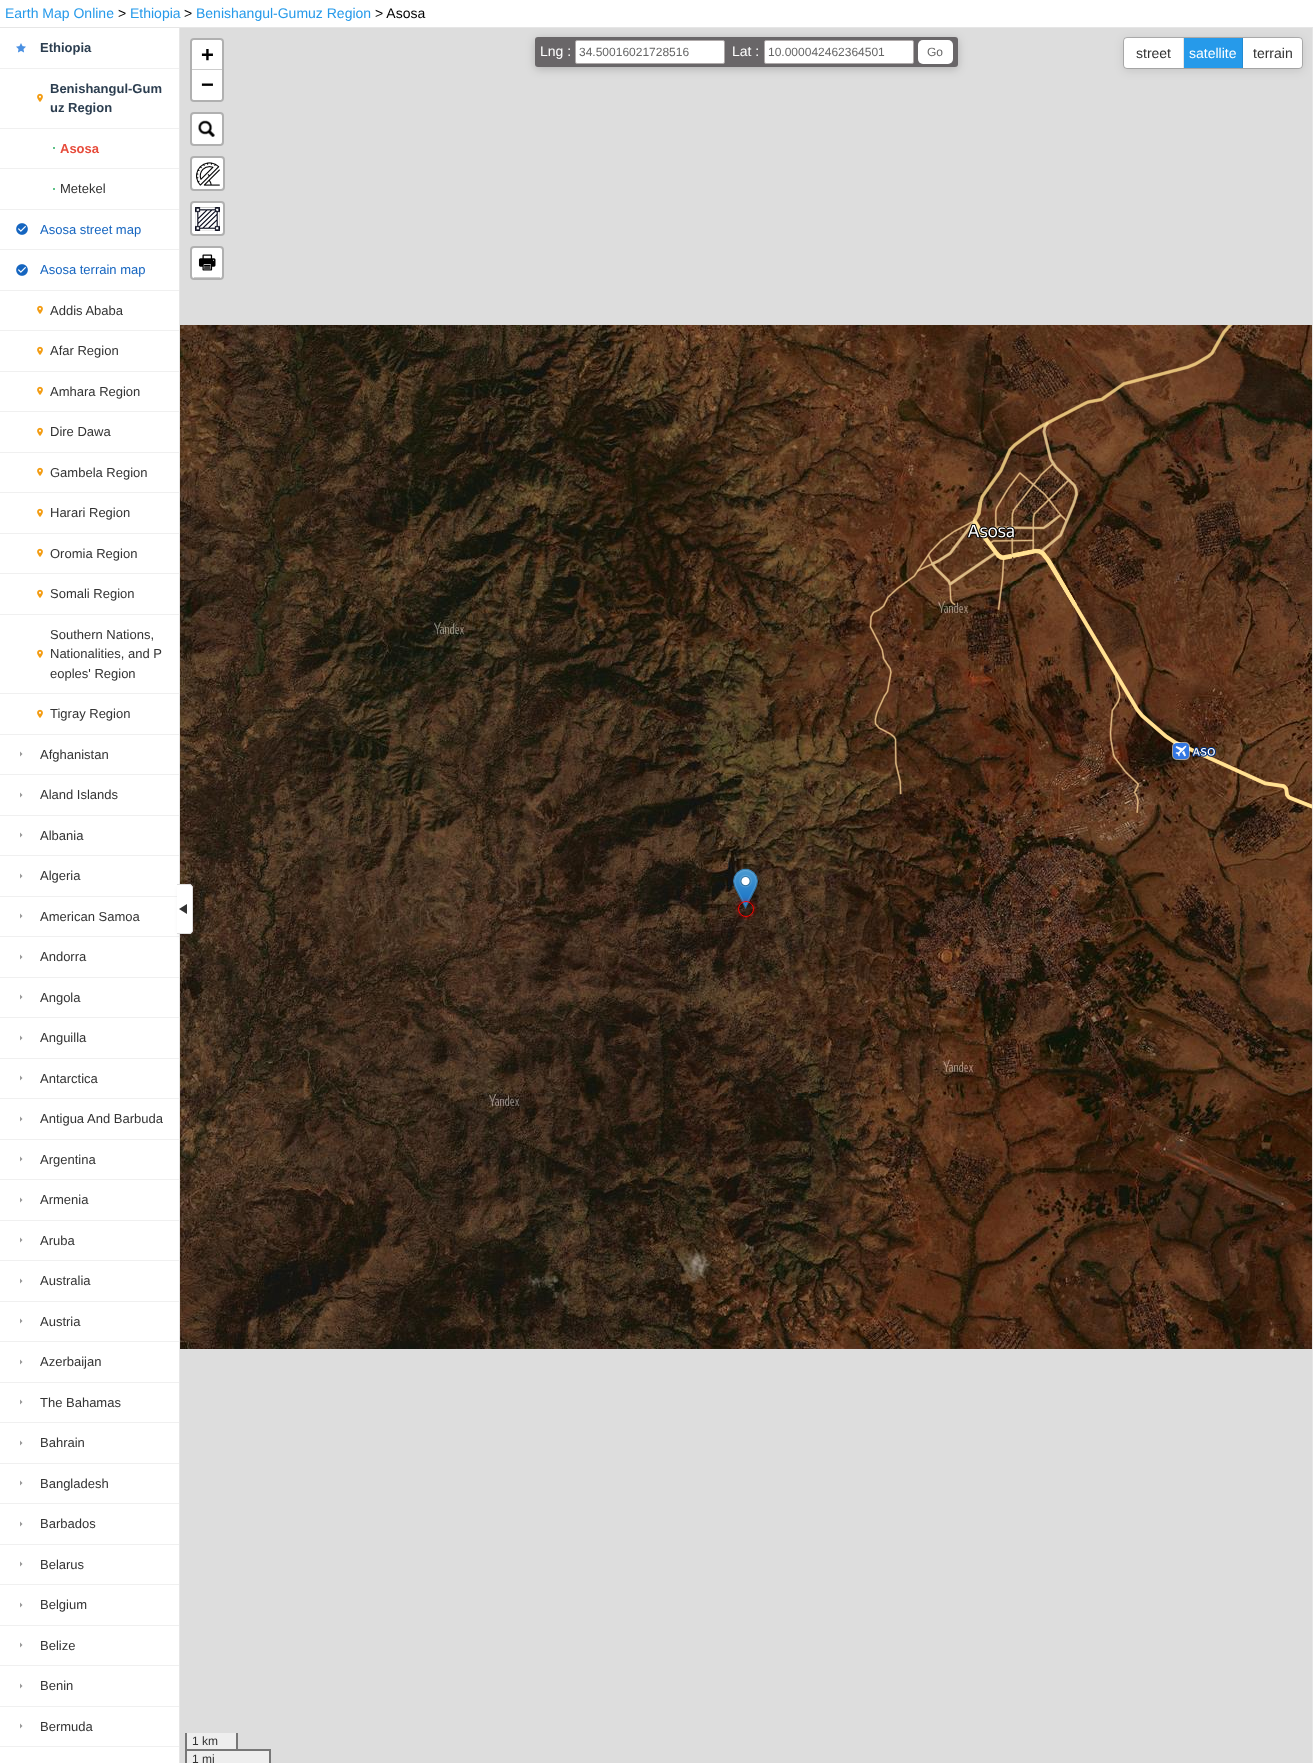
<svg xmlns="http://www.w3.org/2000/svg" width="1313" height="1763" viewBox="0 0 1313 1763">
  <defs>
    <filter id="blur1" x="-50%" y="-200%" width="200%" height="500%"><feGaussianBlur stdDeviation="2.5"/></filter>
    <clipPath id="clip1"><path d="M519 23H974V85H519ZM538 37H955C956.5 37 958 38.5 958 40V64C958 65.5 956.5 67 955 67H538C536.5 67 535 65.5 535 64V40C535 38.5 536.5 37 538 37Z" clip-rule="evenodd"/></clipPath>
    <filter id="blur2" x="-50%" y="-200%" width="200%" height="500%"><feGaussianBlur stdDeviation="5"/></filter>
    <clipPath id="clip2"><path d="M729 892H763V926H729ZM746 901C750.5 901 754 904.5 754 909C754 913.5 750.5 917 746 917C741.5 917 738 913.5 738 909C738 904.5 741.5 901 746 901Z" clip-rule="evenodd"/></clipPath>
  </defs>
  <rect width="100%" height="100%" fill="#ffffff"/>
  <text x="5" y="18" font-family="Liberation Sans" font-size="14" fill="#269aea">Earth Map Online</text>
  <text x="118" y="18" font-family="Liberation Sans" font-size="14" fill="#000000">&gt;</text>
  <text x="130" y="18" font-family="Liberation Sans" font-size="14" fill="#269aea">Ethiopia</text>
  <text x="184" y="18" font-family="Liberation Sans" font-size="14" fill="#000000">&gt;</text>
  <text x="196" y="18" font-family="Liberation Sans" font-size="14" fill="#269aea">Benishangul-Gumuz Region</text>
  <text x="375" y="18" font-family="Liberation Sans" font-size="14" fill="#000000">&gt; Asosa</text>
  <rect x="0" y="27" width="179" height="1" fill="#e6e6e6"/>
  <rect x="0" y="68" width="179" height="1" fill="#f0f0f0"/>
  <image x="16" y="43" width="10" height="10" href="img1.png"/>
  <text x="40" y="52" font-family="Liberation Sans" font-size="13" font-weight="bold" fill="#2c3e50">Ethiopia</text>
  <rect x="0" y="128" width="179" height="1" fill="#f0f0f0"/>
  <image x="37" y="93" width="6" height="9" href="img2.png"/>
  <text x="50" y="93" font-family="Liberation Sans" font-size="13" font-weight="bold" fill="#2c3e50">Benishangul-Gum</text>
  <text x="50" y="112" font-family="Liberation Sans" font-size="13" font-weight="bold" fill="#2c3e50">uz Region</text>
  <rect x="0" y="168" width="179" height="1" fill="#f0f0f0"/>
  <circle cx="54" cy="148" r="1" fill="#27ae60"/>
  <text x="60" y="153" font-family="Liberation Sans" font-size="13" font-weight="bold" fill="#e74c3c">Asosa</text>
  <rect x="0" y="209" width="179" height="1" fill="#f0f0f0"/>
  <circle cx="54" cy="189" r="1" fill="#27ae60"/>
  <text x="60" y="193" font-family="Liberation Sans" font-size="13" fill="#333333">Metekel</text>
  <rect x="0" y="249" width="179" height="1" fill="#f0f0f0"/>
  <image x="16" y="223" width="12" height="12" href="img3.png"/>
  <text x="40" y="234" font-family="Liberation Sans" font-size="13" fill="#1565c0">Asosa street map</text>
  <rect x="0" y="290" width="179" height="1" fill="#f0f0f0"/>
  <image x="16" y="264" width="12" height="12" href="img3.png"/>
  <text x="40" y="274" font-family="Liberation Sans" font-size="13" fill="#1565c0">Asosa terrain map</text>
  <rect x="0" y="330" width="179" height="1" fill="#f0f0f0"/>
  <image x="37" y="305" width="6" height="9" href="img2.png"/>
  <text x="50" y="315" font-family="Liberation Sans" font-size="13" fill="#333333">Addis Ababa</text>
  <rect x="0" y="371" width="179" height="1" fill="#f0f0f0"/>
  <image x="37" y="346" width="6" height="9" href="img2.png"/>
  <text x="50" y="355" font-family="Liberation Sans" font-size="13" fill="#333333">Afar Region</text>
  <rect x="0" y="411" width="179" height="1" fill="#f0f0f0"/>
  <image x="37" y="386" width="6" height="9" href="img2.png"/>
  <text x="50" y="396" font-family="Liberation Sans" font-size="13" fill="#333333">Amhara Region</text>
  <rect x="0" y="452" width="179" height="1" fill="#f0f0f0"/>
  <image x="37" y="427" width="6" height="9" href="img2.png"/>
  <text x="50" y="436" font-family="Liberation Sans" font-size="13" fill="#333333">Dire Dawa</text>
  <rect x="0" y="492" width="179" height="1" fill="#f0f0f0"/>
  <image x="37" y="467" width="6" height="9" href="img2.png"/>
  <text x="50" y="477" font-family="Liberation Sans" font-size="13" fill="#333333">Gambela Region</text>
  <rect x="0" y="533" width="179" height="1" fill="#f0f0f0"/>
  <image x="37" y="508" width="6" height="9" href="img2.png"/>
  <text x="50" y="517" font-family="Liberation Sans" font-size="13" fill="#333333">Harari Region</text>
  <rect x="0" y="573" width="179" height="1" fill="#f0f0f0"/>
  <image x="37" y="548" width="6" height="9" href="img2.png"/>
  <text x="50" y="558" font-family="Liberation Sans" font-size="13" fill="#333333">Oromia Region</text>
  <rect x="0" y="614" width="179" height="1" fill="#f0f0f0"/>
  <image x="37" y="589" width="6" height="9" href="img2.png"/>
  <text x="50" y="598" font-family="Liberation Sans" font-size="13" fill="#333333">Somali Region</text>
  <rect x="0" y="693" width="179" height="1" fill="#f0f0f0"/>
  <image x="37" y="649" width="6" height="9" href="img2.png"/>
  <text x="50" y="639" font-family="Liberation Sans" font-size="13" fill="#333333">Southern Nations,</text>
  <text x="50" y="658" font-family="Liberation Sans" font-size="13" fill="#333333">Nationalities, and P</text>
  <text x="50" y="678" font-family="Liberation Sans" font-size="13" fill="#333333">eoples' Region</text>
  <rect x="0" y="734" width="179" height="1" fill="#f0f0f0"/>
  <image x="37" y="709" width="6" height="9" href="img2.png"/>
  <text x="50" y="718" font-family="Liberation Sans" font-size="13" fill="#333333">Tigray Region</text>
  <rect x="0" y="774" width="179" height="1" fill="#f0f0f0"/>
  <path d="M20 756.5L22.5 754L20 751.5Z" fill="#999999"/>
  <text x="40" y="759" font-family="Liberation Sans" font-size="13" fill="#333333">Afghanistan</text>
  <rect x="0" y="815" width="179" height="1" fill="#f0f0f0"/>
  <path d="M20 797.5L22.5 795L20 792.5Z" fill="#999999"/>
  <text x="40" y="799" font-family="Liberation Sans" font-size="13" fill="#333333">Aland Islands</text>
  <rect x="0" y="855" width="179" height="1" fill="#f0f0f0"/>
  <path d="M20 837.5L22.5 835L20 832.5Z" fill="#999999"/>
  <text x="40" y="840" font-family="Liberation Sans" font-size="13" fill="#333333">Albania</text>
  <rect x="0" y="896" width="179" height="1" fill="#f0f0f0"/>
  <path d="M20 878.5L22.5 876L20 873.5Z" fill="#999999"/>
  <text x="40" y="880" font-family="Liberation Sans" font-size="13" fill="#333333">Algeria</text>
  <rect x="0" y="936" width="179" height="1" fill="#f0f0f0"/>
  <path d="M20 918.5L22.5 916L20 913.5Z" fill="#999999"/>
  <text x="40" y="921" font-family="Liberation Sans" font-size="13" fill="#333333">American Samoa</text>
  <rect x="0" y="977" width="179" height="1" fill="#f0f0f0"/>
  <path d="M20 959.5L22.5 957L20 954.5Z" fill="#999999"/>
  <text x="40" y="961" font-family="Liberation Sans" font-size="13" fill="#333333">Andorra</text>
  <rect x="0" y="1017" width="179" height="1" fill="#f0f0f0"/>
  <path d="M20 999.5L22.5 997L20 994.5Z" fill="#999999"/>
  <text x="40" y="1002" font-family="Liberation Sans" font-size="13" fill="#333333">Angola</text>
  <rect x="0" y="1058" width="179" height="1" fill="#f0f0f0"/>
  <path d="M20 1040.5L22.5 1038L20 1035.5Z" fill="#999999"/>
  <text x="40" y="1042" font-family="Liberation Sans" font-size="13" fill="#333333">Anguilla</text>
  <rect x="0" y="1098" width="179" height="1" fill="#f0f0f0"/>
  <path d="M20 1080.5L22.5 1078L20 1075.5Z" fill="#999999"/>
  <text x="40" y="1083" font-family="Liberation Sans" font-size="13" fill="#333333">Antarctica</text>
  <rect x="0" y="1139" width="179" height="1" fill="#f0f0f0"/>
  <path d="M20 1121.5L22.5 1119L20 1116.5Z" fill="#999999"/>
  <text x="40" y="1123" font-family="Liberation Sans" font-size="13" fill="#333333">Antigua And Barbuda</text>
  <rect x="0" y="1179" width="179" height="1" fill="#f0f0f0"/>
  <path d="M20 1161.5L22.5 1159L20 1156.5Z" fill="#999999"/>
  <text x="40" y="1164" font-family="Liberation Sans" font-size="13" fill="#333333">Argentina</text>
  <rect x="0" y="1220" width="179" height="1" fill="#f0f0f0"/>
  <path d="M20 1202.5L22.5 1200L20 1197.5Z" fill="#999999"/>
  <text x="40" y="1204" font-family="Liberation Sans" font-size="13" fill="#333333">Armenia</text>
  <rect x="0" y="1260" width="179" height="1" fill="#f0f0f0"/>
  <path d="M20 1242.5L22.5 1240L20 1237.5Z" fill="#999999"/>
  <text x="40" y="1245" font-family="Liberation Sans" font-size="13" fill="#333333">Aruba</text>
  <rect x="0" y="1301" width="179" height="1" fill="#f0f0f0"/>
  <path d="M20 1283.5L22.5 1281L20 1278.5Z" fill="#999999"/>
  <text x="40" y="1285" font-family="Liberation Sans" font-size="13" fill="#333333">Australia</text>
  <rect x="0" y="1341" width="179" height="1" fill="#f0f0f0"/>
  <path d="M20 1323.5L22.5 1321L20 1318.5Z" fill="#999999"/>
  <text x="40" y="1326" font-family="Liberation Sans" font-size="13" fill="#333333">Austria</text>
  <rect x="0" y="1382" width="179" height="1" fill="#f0f0f0"/>
  <path d="M20 1364.5L22.5 1362L20 1359.5Z" fill="#999999"/>
  <text x="40" y="1366" font-family="Liberation Sans" font-size="13" fill="#333333">Azerbaijan</text>
  <rect x="0" y="1422" width="179" height="1" fill="#f0f0f0"/>
  <path d="M20 1404.5L22.5 1402L20 1399.5Z" fill="#999999"/>
  <text x="40" y="1407" font-family="Liberation Sans" font-size="13" fill="#333333">The Bahamas</text>
  <rect x="0" y="1463" width="179" height="1" fill="#f0f0f0"/>
  <path d="M20 1445.5L22.5 1443L20 1440.5Z" fill="#999999"/>
  <text x="40" y="1447" font-family="Liberation Sans" font-size="13" fill="#333333">Bahrain</text>
  <rect x="0" y="1503" width="179" height="1" fill="#f0f0f0"/>
  <path d="M20 1485.5L22.5 1483L20 1480.5Z" fill="#999999"/>
  <text x="40" y="1488" font-family="Liberation Sans" font-size="13" fill="#333333">Bangladesh</text>
  <rect x="0" y="1544" width="179" height="1" fill="#f0f0f0"/>
  <path d="M20 1526.5L22.5 1524L20 1521.5Z" fill="#999999"/>
  <text x="40" y="1528" font-family="Liberation Sans" font-size="13" fill="#333333">Barbados</text>
  <rect x="0" y="1584" width="179" height="1" fill="#f0f0f0"/>
  <path d="M20 1566.5L22.5 1564L20 1561.5Z" fill="#999999"/>
  <text x="40" y="1569" font-family="Liberation Sans" font-size="13" fill="#333333">Belarus</text>
  <rect x="0" y="1625" width="179" height="1" fill="#f0f0f0"/>
  <path d="M20 1607.5L22.5 1605L20 1602.5Z" fill="#999999"/>
  <text x="40" y="1609" font-family="Liberation Sans" font-size="13" fill="#333333">Belgium</text>
  <rect x="0" y="1665" width="179" height="1" fill="#f0f0f0"/>
  <path d="M20 1647.5L22.5 1645L20 1642.5Z" fill="#999999"/>
  <text x="40" y="1650" font-family="Liberation Sans" font-size="13" fill="#333333">Belize</text>
  <rect x="0" y="1706" width="179" height="1" fill="#f0f0f0"/>
  <path d="M20 1688.5L22.5 1686L20 1683.5Z" fill="#999999"/>
  <text x="40" y="1690" font-family="Liberation Sans" font-size="13" fill="#333333">Benin</text>
  <rect x="0" y="1746" width="179" height="1" fill="#f0f0f0"/>
  <path d="M20 1728.5L22.5 1726L20 1723.5Z" fill="#999999"/>
  <text x="40" y="1731" font-family="Liberation Sans" font-size="13" fill="#333333">Bermuda</text>
  <rect x="180" y="28" width="1132" height="1735" fill="#dddddd"/>
  <rect x="187" y="1751" width="82" height="12" fill="#eeeeee"/>
  <rect x="179.5" y="27.5" width="1133" height="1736" fill="none" stroke="#e6e6e6"/>
  <image x="180" y="837" width="36" height="256" href="img19.png"/>
  <rect x="179" y="886" width="16" height="50" rx="4" fill="#000000" fill-opacity="0.1" filter="url(#blur1)"/>
  <path d="M177 884H189C191 884 193 886 193 888V930C193 932 191 934 189 934H177Z" fill="#ffffff"/>
  <path d="M177 884H189C191 884 193 886 193 888V930C193 932 191 934 189 934H177ZM177 885H189C191 885 192 886 192 888V930C192 932 191 933 189 933H177Z" fill="#dddddd" fill-rule="evenodd"/>
  <path d="M187 904V914L179 909Z" fill="#333333"/>
  <rect x="191" y="39" width="32" height="62" rx="3" fill="none" stroke="#000000" stroke-opacity="0.2" stroke-width="2"/>
  <path d="M194 40H220C221 40 222 41 222 42V70H192V42C192 41 193 40 194 40Z" fill="#ffffff"/>
  <rect x="192" y="69" width="30" height="1" fill="#cccccc"/>
  <text x="201" y="62" font-family="Liberation Sans" font-size="22" font-weight="bold" fill="#000000">+</text>
  <path d="M192 70H222V98C222 99 221 100 220 100H194C193 100 192 99 192 98Z" fill="#ffffff"/>
  <text x="201" y="92" font-family="Liberation Sans" font-size="22" font-weight="bold" fill="#000000">−</text>
  <rect x="192" y="114" width="30" height="30" rx="2" fill="#f8f8f8"/>
  <rect x="191" y="113" width="32" height="32" rx="3" fill="none" stroke="#000000" stroke-opacity="0.2" stroke-width="2"/>
  <rect x="192" y="114" width="30" height="30" rx="4" fill="#ffffff"/>
  <image x="198" y="120" width="17" height="17" href="img4.png"/>
  <rect x="192" y="158" width="31" height="31" rx="2" fill="#ffffff"/>
  <image x="196" y="162" width="24" height="24" href="img5.png"/>
  <rect x="191" y="157" width="33" height="33" rx="3" fill="none" stroke="#000000" stroke-opacity="0.2" stroke-width="2"/>
  <rect x="192" y="203" width="31" height="31" rx="2" fill="#ffffff"/>
  <image x="195" y="207" width="25" height="24" href="img6.png"/>
  <rect x="191" y="202" width="33" height="33" rx="3" fill="none" stroke="#000000" stroke-opacity="0.2" stroke-width="2"/>
  <rect x="192" y="248" width="30" height="30" rx="2" fill="#ffffff"/>
  <rect x="191" y="247" width="32" height="32" rx="3" fill="none" stroke="#000000" stroke-opacity="0.2" stroke-width="2"/>
  <rect x="194" y="277" width="26" height="1" fill="#cccccc"/>
  <text x="198" y="269" font-family="'Noto Sans Symbols 2'" font-size="19" font-weight="bold" fill="#000000">🖶</text>
  <rect x="187" y="1733" width="49" height="16" fill="#eeeeee"/>
  <rect x="236" y="1733" width="2" height="18" fill="#777777"/>
  <rect x="185" y="1733" width="2" height="18" fill="#777777"/>
  <text x="192" y="1745" font-family="Liberation Sans" font-size="12" fill="#333333">1 km</text>
  <rect x="185" y="1749" width="86" height="2" fill="#777777"/>
  <rect x="269" y="1749" width="2" height="14" fill="#777777"/>
  <rect x="185" y="1749" width="2" height="14" fill="#777777"/>
  <text x="192" y="1763" font-family="Liberation Sans" font-size="12" fill="#333333">1 mi</text>
  <image x="180" y="325" width="36" height="256" href="img7.png"/>
  <image x="216" y="325" width="256" height="256" href="img8.png"/>
  <image x="472" y="325" width="256" height="256" href="img9.png"/>
  <image x="728" y="325" width="256" height="256" href="img10.png"/>
  <image x="984" y="325" width="256" height="256" href="img11.png"/>
  <image x="1240" y="325" width="72" height="256" href="img12.png"/>
  <image x="180" y="581" width="36" height="256" href="img13.png"/>
  <image x="216" y="581" width="256" height="256" href="img14.png"/>
  <image x="472" y="581" width="256" height="256" href="img15.png"/>
  <image x="728" y="581" width="256" height="256" href="img16.png"/>
  <image x="984" y="581" width="256" height="256" href="img17.png"/>
  <image x="1240" y="581" width="72" height="256" href="img18.png"/>
  <image x="216" y="837" width="256" height="256" href="img20.png"/>
  <image x="472" y="837" width="256" height="256" href="img21.png"/>
  <image x="728" y="837" width="256" height="256" href="img22.png"/>
  <image x="984" y="837" width="256" height="256" href="img23.png"/>
  <image x="1240" y="837" width="72" height="256" href="img24.png"/>
  <image x="180" y="1093" width="36" height="256" href="img25.png"/>
  <image x="216" y="1093" width="256" height="256" href="img26.png"/>
  <image x="472" y="1093" width="256" height="256" href="img27.png"/>
  <image x="728" y="1093" width="256" height="256" href="img28.png"/>
  <image x="984" y="1093" width="256" height="256" href="img29.png"/>
  <image x="1240" y="1093" width="72" height="256" href="img30.png"/>
  <image x="906" y="491" width="78" height="90" href="img31.png"/>
  <image x="984" y="325" width="249" height="256" href="img32.png"/>
  <image x="869" y="581" width="89" height="214" href="img33.png"/>
  <image x="997" y="581" width="243" height="232" href="img34.png"/>
  <image x="1240" y="769" width="72" height="40" href="img35.png"/>
  <image x="743" y="882" width="26" height="27" href="img37.png"/>
  <image x="733" y="868" width="25" height="41" href="img36.png"/>
  <g clip-path="url(#clip1)">
    <rect x="535" y="39" width="423" height="30" rx="3" fill="#000000" fill-opacity="0.2" filter="url(#blur2)"/>
  </g>
  <rect x="535" y="37" width="423" height="30" rx="3" fill="#555154" fill-opacity="0.85"/>
  <text x="540" y="56" font-family="Liberation Sans" font-size="14" fill="#ffffff">Lng :</text>
  <rect x="575.5" y="40.5" width="149" height="23" rx="1.5" fill="#ffffff" stroke="#afaaaa"/>
  <text x="579" y="56" font-family="Liberation Sans" font-size="12" fill="#666666">34.50016021728516</text>
  <text x="732" y="56" font-family="Liberation Sans" font-size="14" fill="#ffffff">Lat :</text>
  <rect x="764.5" y="40.5" width="149" height="23" rx="1.5" fill="#ffffff" stroke="#afaaaa"/>
  <text x="768" y="56" font-family="Liberation Sans" font-size="12" fill="#666666">10.000042462364501</text>
  <rect x="918" y="40" width="35" height="24" rx="5" fill="#ffffff"/>
  <text x="927" y="56" font-family="Liberation Sans" font-size="12" fill="#666666">Go</text>
  <rect x="1123" y="39" width="180" height="32" rx="4" fill="#000000" fill-opacity="0.1" filter="url(#blur2)"/>
  <rect x="1124" y="38" width="178" height="30" rx="3" fill="#ffffff"/>
  <rect x="1123.5" y="37.5" width="179" height="31" rx="3.5" fill="none" stroke="#000000" stroke-opacity="0.2"/>
  <rect x="1183" y="38" width="1" height="30" fill="#e6e6e6"/>
  <text x="1136" y="58" font-family="Liberation Sans" font-size="14" fill="#333333">street</text>
  <rect x="1184" y="38" width="58" height="30" fill="#269aea"/>
  <rect x="1242" y="38" width="1" height="30" fill="#228bd3"/>
  <text x="1189" y="58" font-family="Liberation Sans" font-size="14" fill="#ffffff">satellite</text>
  <text x="1253" y="58" font-family="Liberation Sans" font-size="14" fill="#333333">terrain</text>
  <g clip-path="url(#clip2)">
    <rect x="738" y="901" width="16" height="16" rx="8" fill="#ff0000" fill-opacity="0.5" filter="url(#blur1)"/>
  </g>
  <circle cx="746" cy="909" r="7.5" fill="none" stroke="#ff0000"/>
</svg>
